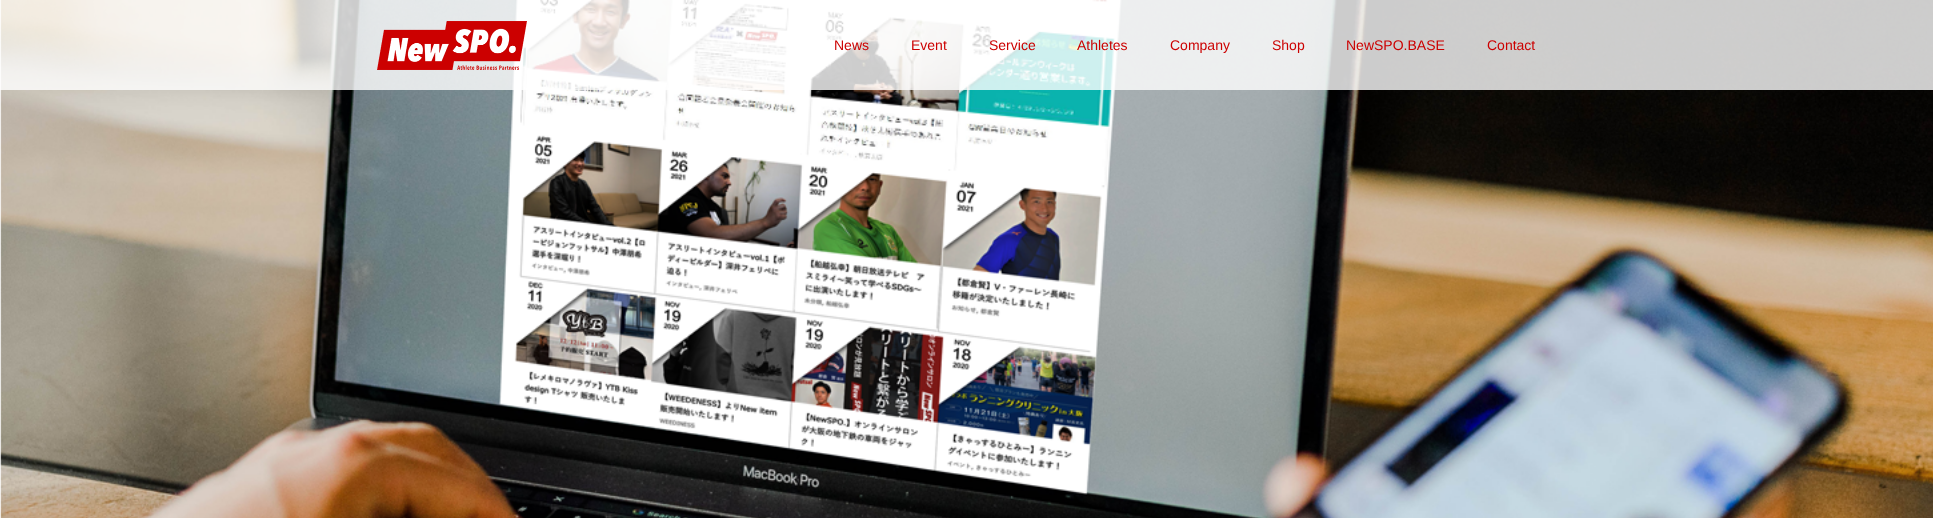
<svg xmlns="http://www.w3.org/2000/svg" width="1933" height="518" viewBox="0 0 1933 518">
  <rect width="100%" height="100%" fill="#ffffff"/>
  <image x="0" y="0" width="1933" height="518" href="img1.png"/>
  <rect x="0" y="0" width="1933" height="90" fill="#ffffff" fill-opacity="0.8"/>
  <image x="377" y="21" width="150" height="49" href="img2.png"/>
  <text x="834" y="50" font-family="Liberation Sans" font-size="14" fill="#cc0000">News</text>
  <text x="911" y="50" font-family="Liberation Sans" font-size="14" fill="#cc0000">Event</text>
  <text x="989" y="50" font-family="Liberation Sans" font-size="14" fill="#cc0000">Service</text>
  <text x="1077" y="50" font-family="Liberation Sans" font-size="14" fill="#cc0000">Athletes</text>
  <text x="1170" y="50" font-family="Liberation Sans" font-size="14" fill="#cc0000">Company</text>
  <text x="1272" y="50" font-family="Liberation Sans" font-size="14" fill="#cc0000">Shop</text>
  <text x="1346" y="50" font-family="Liberation Sans" font-size="14" fill="#cc0000">NewSPO.BASE</text>
  <text x="1487" y="50" font-family="Liberation Sans" font-size="14" fill="#cc0000">Contact</text>
</svg>
